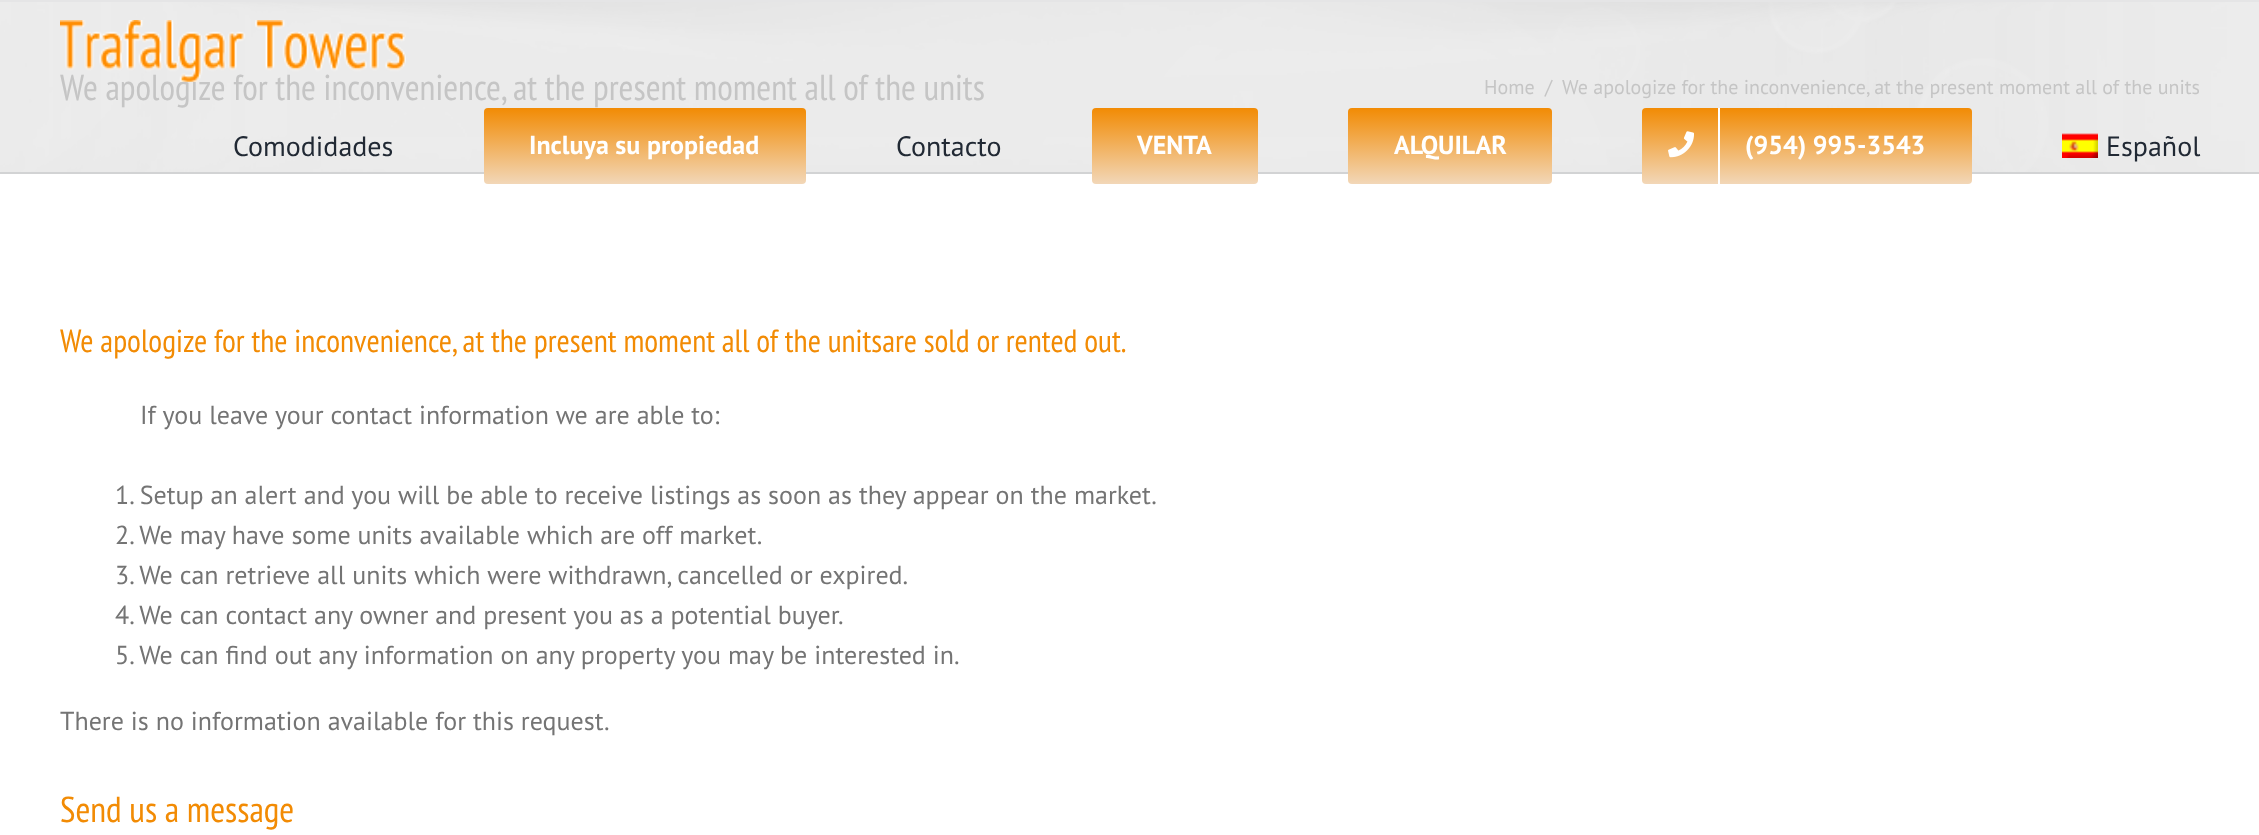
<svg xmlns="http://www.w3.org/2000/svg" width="2259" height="835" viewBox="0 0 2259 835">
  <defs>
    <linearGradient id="g1" gradientUnits="userSpaceOnUse" x1="645" y1="184" x2="645" y2="108"><stop offset="0" stop-color="#f2d7b8"/><stop offset="1" stop-color="#f28b04"/></linearGradient>
    <linearGradient id="g2" gradientUnits="userSpaceOnUse" x1="1175" y1="184" x2="1175" y2="108"><stop offset="0" stop-color="#f2d7b8"/><stop offset="1" stop-color="#f28b04"/></linearGradient>
    <linearGradient id="g3" gradientUnits="userSpaceOnUse" x1="1450" y1="184" x2="1450" y2="108"><stop offset="0" stop-color="#f2d7b8"/><stop offset="1" stop-color="#f28b04"/></linearGradient>
    <linearGradient id="g4" gradientUnits="userSpaceOnUse" x1="1807" y1="184" x2="1807" y2="108"><stop offset="0" stop-color="#f2d7b8"/><stop offset="1" stop-color="#f28b04"/></linearGradient>
  </defs>
  <rect width="100%" height="100%" fill="#ffffff"/>
  <rect x="0" y="2" width="2259" height="170" fill="#ececec"/>
  <image x="0" y="2" width="2245" height="170" href="img1.png"/>
  <rect x="0" y="0" width="2259" height="2" fill="#e5e5e6"/>
  <rect x="0" y="172" width="2259" height="2" fill="#d2d3d4"/>
  <text x="60" y="100" font-family="PT Sans Narrow" font-size="36" fill="#c5c5c5">We apologize for the inconvenience, at the present moment all of the units</text>
  <text x="1484" y="94" font-family="PT Sans" font-size="20" fill="#c5c5c5">Home</text>
  <text x="1545" y="94" font-family="PT Sans" font-size="20" fill="#c5c5c5">/</text>
  <text x="1562" y="94" font-family="PT Sans" font-size="20" fill="#c5c5c5">We apologize for the inconvenience, at the present moment all of the units</text>
  <image x="60" y="20" width="346" height="62" href="img2.png"/>
  <text x="233" y="156" font-family="PT Sans" font-size="28" fill="#212934">Comodidades</text>
  <rect x="484" y="108" width="322" height="76" rx="4" fill="url(#g1)"/>
  <text x="529" y="154" font-family="PT Sans" font-size="26" font-weight="bold" fill="#ffffff">Incluya su propiedad</text>
  <text x="896" y="156" font-family="PT Sans" font-size="28" fill="#212934">Contacto</text>
  <rect x="1092" y="108" width="166" height="76" rx="4" fill="url(#g2)"/>
  <text x="1137" y="154" font-family="PT Sans" font-size="26" font-weight="bold" fill="#ffffff">VENTA</text>
  <rect x="1348" y="108" width="204" height="76" rx="4" fill="url(#g3)"/>
  <text x="1394" y="154" font-family="PT Sans" font-size="26" font-weight="bold" fill="#ffffff">ALQUILAR</text>
  <rect x="1642" y="108" width="330" height="76" rx="4" fill="url(#g4)"/>
  <rect x="1718" y="108" width="2" height="76" fill="#ffffff"/>
  <image x="1668" y="131" width="26" height="27" href="img3.png"/>
  <text x="1745" y="154" font-family="PT Sans" font-size="26" font-weight="bold" fill="#ffffff">(954) 995-3543</text>
  <image x="2062" y="133" width="36" height="25" href="img4.png"/>
  <text x="2106" y="156" font-family="PT Sans" font-size="28" fill="#212934">Español</text>
  <text x="60" y="352" font-family="PT Sans Narrow" font-size="32" fill="#f28b04">We apologize for the inconvenience, at the present moment all of the unitsare sold or rented out.</text>
  <text x="140" y="424" font-family="PT Sans" font-size="26" fill="#747474">If you leave your contact information we are able to:</text>
  <text x="115" y="504" font-family="PT Sans" font-size="26" fill="#747474">1. Setup an alert and you will be able to receive listings as soon as they appear on the market.</text>
  <text x="115" y="544" font-family="PT Sans" font-size="26" fill="#747474">2. We may have some units available which are off market.</text>
  <text x="115" y="584" font-family="PT Sans" font-size="26" fill="#747474">3. We can retrieve all units which were withdrawn, cancelled or expired.</text>
  <text x="115" y="624" font-family="PT Sans" font-size="26" fill="#747474">4. We can contact any owner and present you as a potential buyer.</text>
  <text x="115" y="664" font-family="PT Sans" font-size="26" fill="#747474">5. We can find out any information on any property you may be interested in.</text>
  <text x="60" y="730" font-family="PT Sans" font-size="26" fill="#747474">There is no information available for this request.</text>
  <text x="60" y="822" font-family="PT Sans Narrow" font-size="36" fill="#f28b04">Send us a message</text>
</svg>
